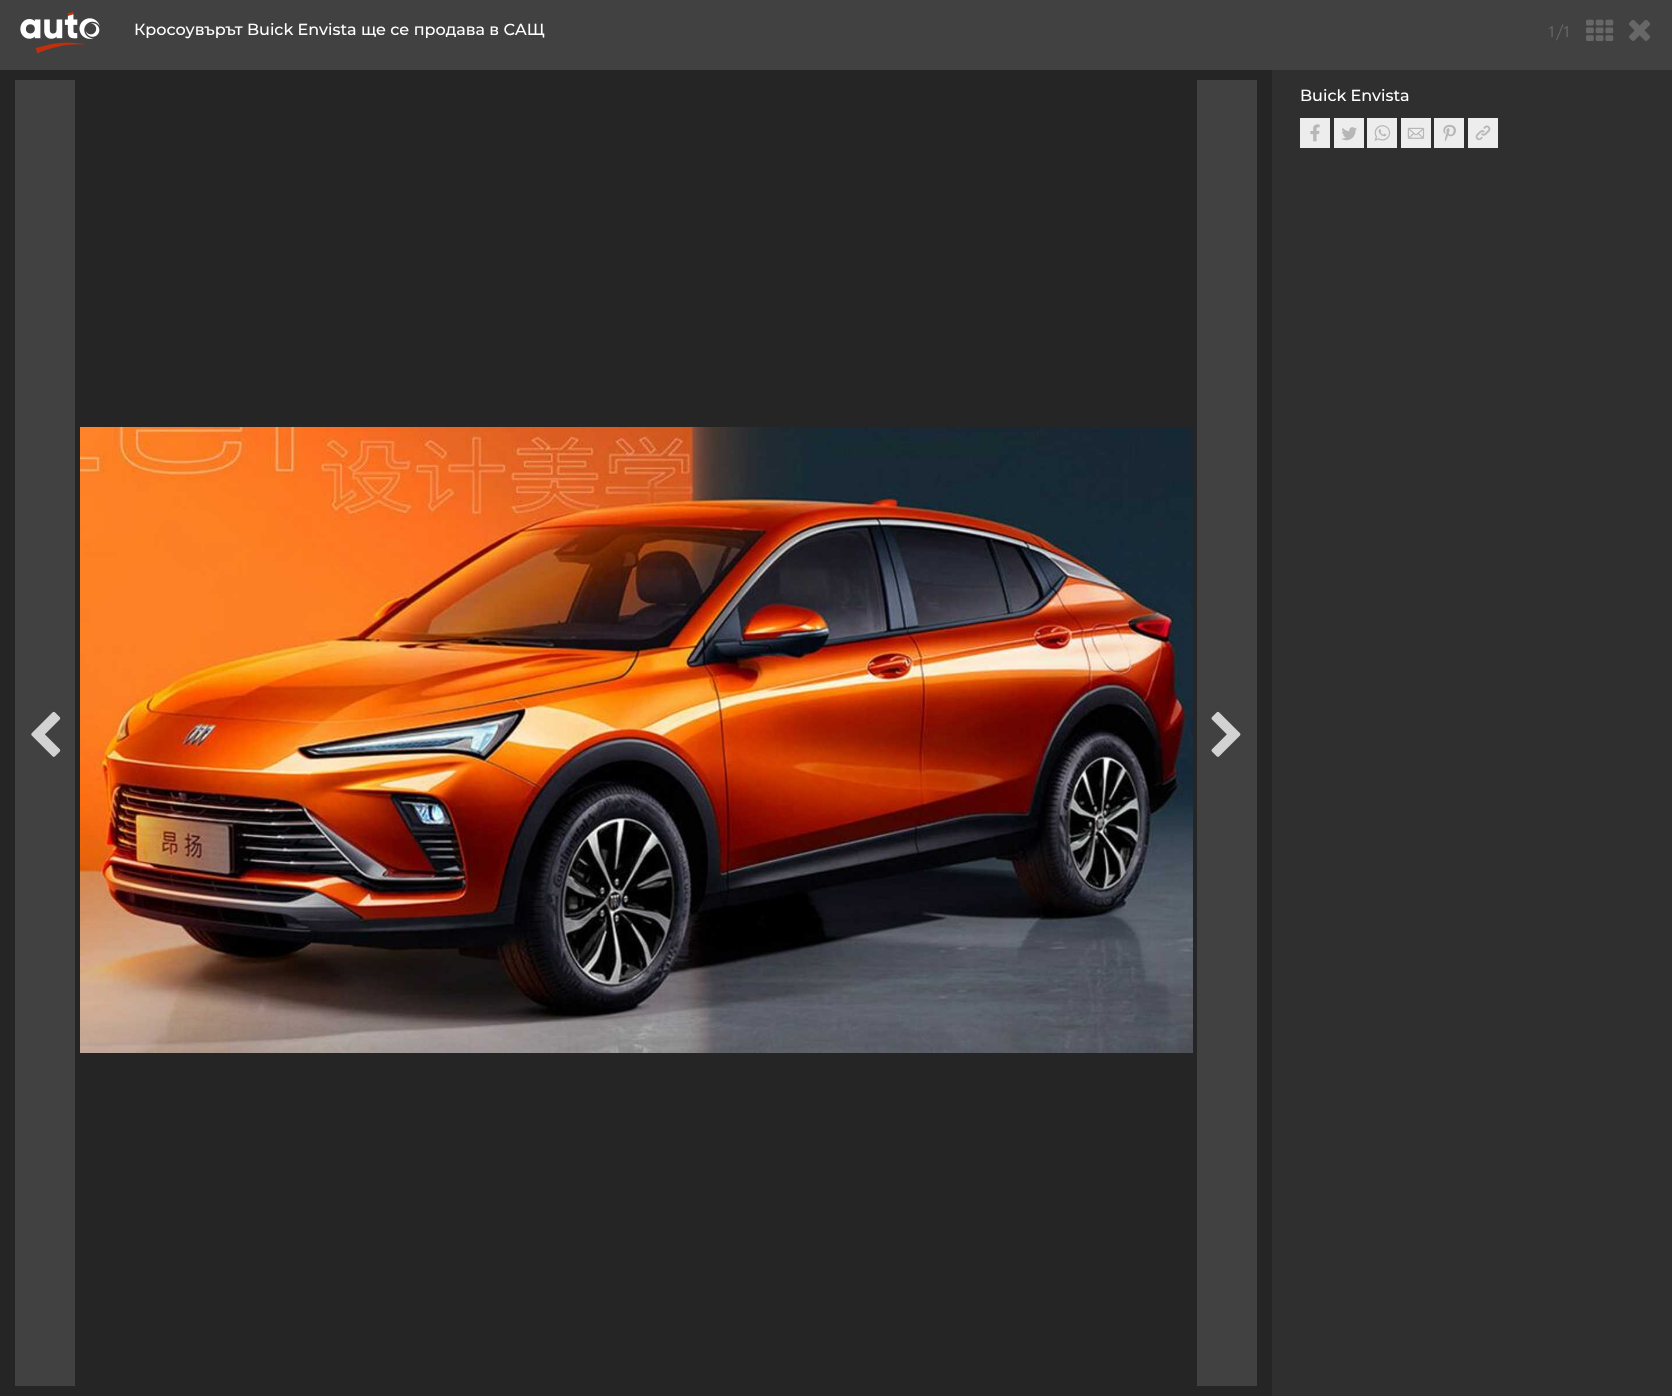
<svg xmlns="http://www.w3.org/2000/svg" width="1672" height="1396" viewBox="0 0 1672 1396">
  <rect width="100%" height="100%" fill="#252525"/>
  <rect x="0" y="0" width="1672" height="70" fill="#424141"/>
  <image x="20" y="11" width="80" height="43" href="img1.png"/>
  <text x="134" y="35" font-family="Montserrat" font-size="16" font-weight="500" fill="#ffffff">Кросоувърът Buick Envista ще се продава в САЩ</text>
  <text x="1547" y="37" font-family="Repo" font-size="16" fill="#676767">1/1</text>
  <image x="1586" y="19" width="28" height="22" href="img2.png"/>
  <image x="1629" y="20" width="21" height="21" href="img3.png"/>
  <rect x="15" y="80" width="60" height="1306" fill="#414141"/>
  <image x="31" y="711" width="30" height="46" href="img4.png"/>
  <image x="80" y="427" width="1113" height="626" href="img5.png"/>
  <rect x="1197" y="80" width="60" height="1306" fill="#414141"/>
  <image x="1211" y="711" width="30" height="46" href="img6.png"/>
  <rect x="1272" y="70" width="400" height="1326" fill="#2f2f2f"/>
  <text x="1300" y="101" font-family="Montserrat" font-size="16" font-weight="500" fill="#ffffff">Buick Envista</text>
  <image x="1300" y="118" width="30" height="30" href="img7.png"/>
  <image x="1334" y="118" width="30" height="30" href="img8.png"/>
  <image x="1367" y="118" width="30" height="30" href="img9.png"/>
  <image x="1401" y="118" width="30" height="30" href="img10.png"/>
  <image x="1434" y="118" width="30" height="30" href="img11.png"/>
  <image x="1468" y="118" width="30" height="30" href="img12.png"/>
</svg>
